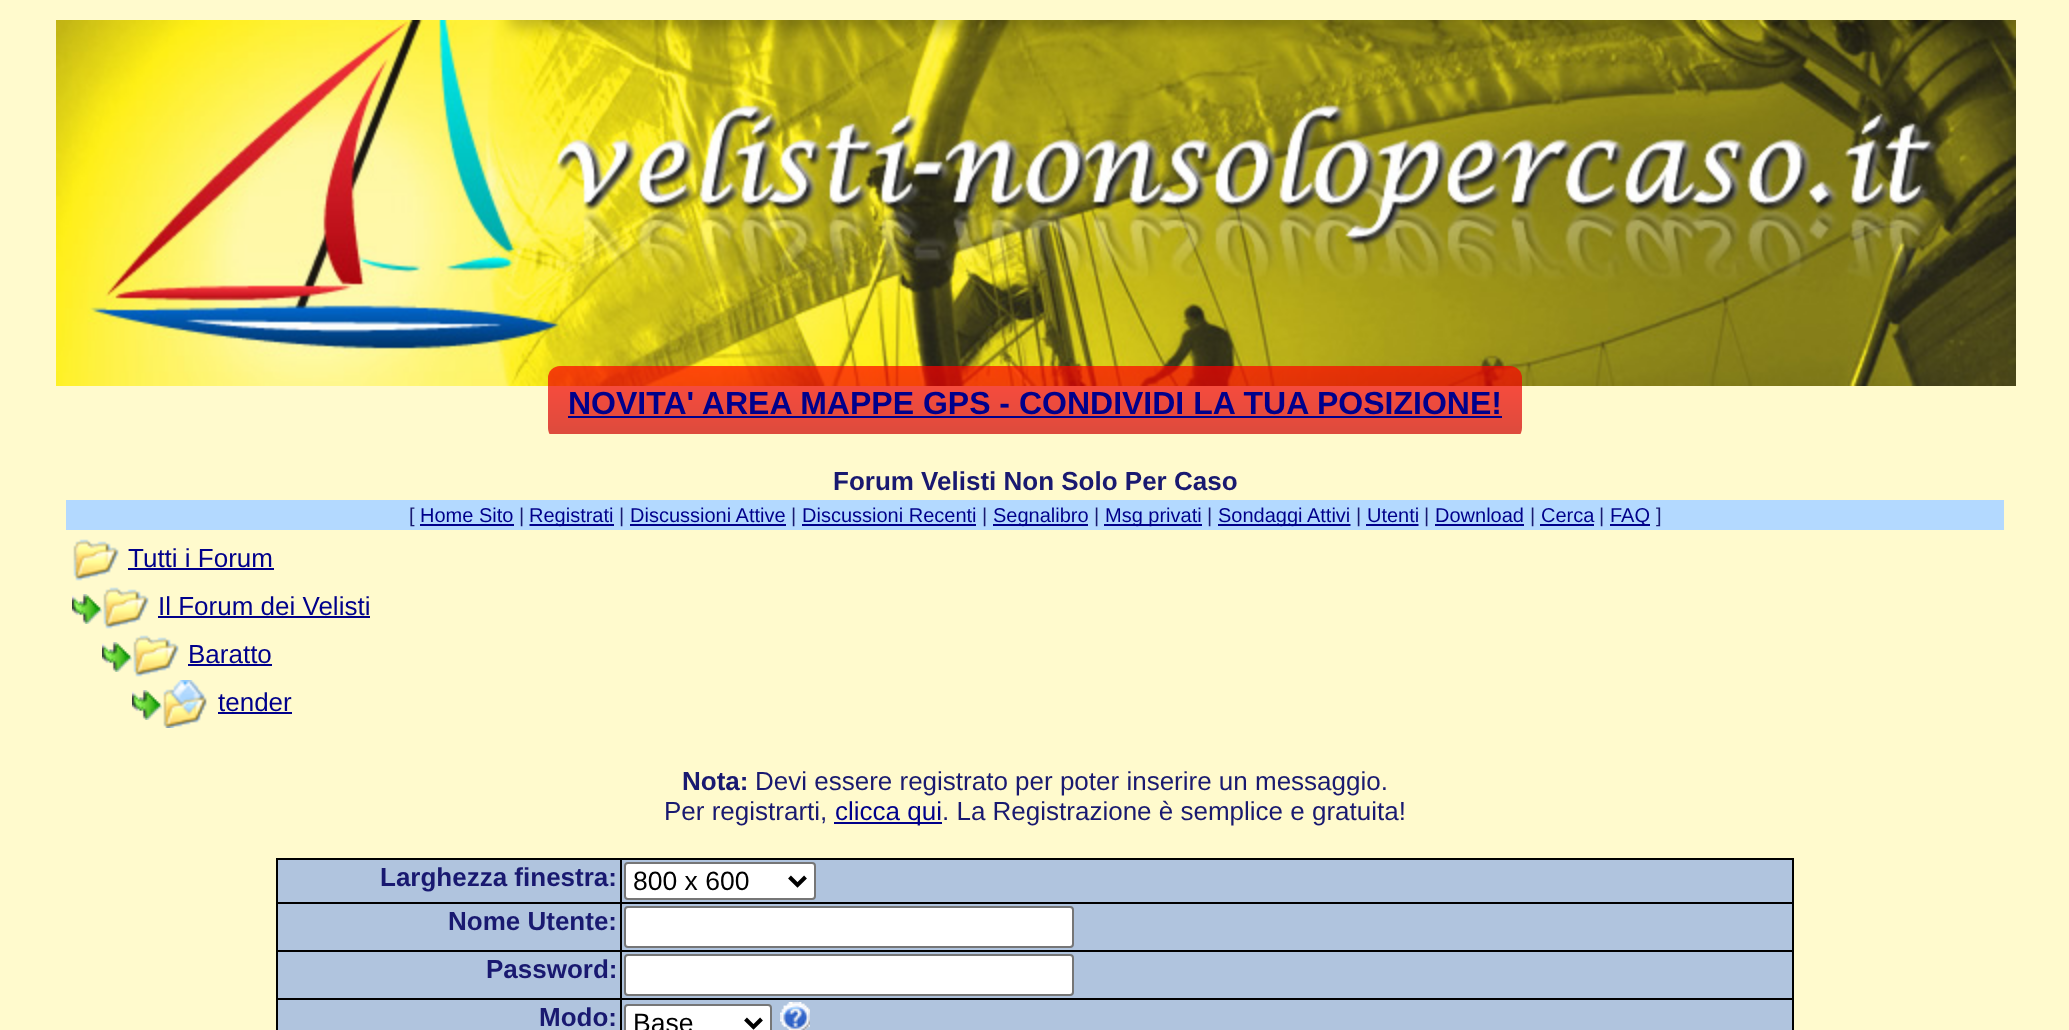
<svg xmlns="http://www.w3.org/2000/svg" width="2069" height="1030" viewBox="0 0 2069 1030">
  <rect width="100%" height="100%" fill="#fffacd"/>
  <image x="56" y="20" width="1960" height="366" href="img1.png"/>
  <image x="548" y="366" width="974" height="68" href="img2.png"/>
  <text x="568" y="414" font-family="Liberation Sans" font-size="32" font-weight="bold" fill="#00008b">NOVITA' AREA MAPPE GPS - CONDIVIDI LA TUA POSIZIONE!</text>
  <rect x="568" y="416" width="934" height="2" fill="#00008b"/>
  <text x="833" y="490" font-family="Liberation Sans" font-size="26" font-weight="bold" fill="#191970">Forum Velisti Non Solo Per Caso</text>
  <rect x="66" y="500" width="1938" height="30" fill="#b3d9ff"/>
  <text x="409" y="522" font-family="Liberation Sans" font-size="20" fill="#191970">[</text>
  <text x="420" y="522" font-family="Liberation Sans" font-size="20" fill="#00008b">Home Sito</text>
  <rect x="420" y="524" width="94" height="2" fill="#00008b"/>
  <text x="519" y="522" font-family="Liberation Sans" font-size="20" fill="#191970">|</text>
  <path d="M529.5 525H614" fill="none" stroke="#00008b" stroke-width="2" stroke-dasharray="2 2"/>
  <rect x="530" y="524" width="84" height="2" fill="#00008b"/>
  <text x="529" y="522" font-family="Liberation Sans" font-size="20" fill="#00008b">Registrati</text>
  <text x="619" y="522" font-family="Liberation Sans" font-size="20" fill="#191970">|</text>
  <text x="630" y="522" font-family="Liberation Sans" font-size="20" fill="#00008b">Discussioni Attive</text>
  <rect x="630" y="524" width="156" height="2" fill="#00008b"/>
  <text x="791" y="522" font-family="Liberation Sans" font-size="20" fill="#191970">|</text>
  <text x="802" y="522" font-family="Liberation Sans" font-size="20" fill="#00008b">Discussioni Recenti</text>
  <rect x="802" y="524" width="174" height="2" fill="#00008b"/>
  <text x="982" y="522" font-family="Liberation Sans" font-size="20" fill="#191970">|</text>
  <path d="M993 525H1088.5" fill="none" stroke="#00008b" stroke-width="2" stroke-dasharray="2 2"/>
  <rect x="994" y="524" width="94" height="2" fill="#00008b"/>
  <text x="993" y="522" font-family="Liberation Sans" font-size="20" fill="#00008b">Segnalibro</text>
  <text x="1094" y="522" font-family="Liberation Sans" font-size="20" fill="#191970">|</text>
  <rect x="1104" y="524" width="98" height="2" fill="#00008b"/>
  <text x="1105" y="522" font-family="Liberation Sans" font-size="20" fill="#00008b">Msg privati</text>
  <text x="1207" y="522" font-family="Liberation Sans" font-size="20" fill="#191970">|</text>
  <path d="M1218 525H1350.5" fill="none" stroke="#00008b" stroke-width="2" stroke-dasharray="2 2"/>
  <rect x="1218" y="524" width="132" height="2" fill="#00008b"/>
  <text x="1218" y="522" font-family="Liberation Sans" font-size="20" fill="#00008b">Sondaggi Attivi</text>
  <text x="1356" y="522" font-family="Liberation Sans" font-size="20" fill="#191970">|</text>
  <text x="1367" y="522" font-family="Liberation Sans" font-size="20" fill="#00008b">Utenti</text>
  <path d="M1366.5 525H1419" fill="none" stroke="#00008b" stroke-width="2" stroke-dasharray="2 2"/>
  <rect x="1366" y="524" width="52" height="2" fill="#00008b"/>
  <text x="1424" y="522" font-family="Liberation Sans" font-size="20" fill="#191970">|</text>
  <text x="1435" y="522" font-family="Liberation Sans" font-size="20" fill="#00008b">Download</text>
  <path d="M1435 525H1524" fill="none" stroke="#00008b" stroke-width="2" stroke-dasharray="2 2"/>
  <rect x="1436" y="524" width="88" height="2" fill="#00008b"/>
  <text x="1530" y="522" font-family="Liberation Sans" font-size="20" fill="#191970">|</text>
  <text x="1541" y="522" font-family="Liberation Sans" font-size="20" fill="#00008b">Cerca</text>
  <rect x="1540" y="524" width="54" height="2" fill="#00008b"/>
  <text x="1599" y="522" font-family="Liberation Sans" font-size="20" fill="#191970">|</text>
  <rect x="1610" y="524" width="40" height="2" fill="#00008b"/>
  <text x="1610" y="522" font-family="Liberation Sans" font-size="20" fill="#00008b">FAQ</text>
  <text x="1656" y="522" font-family="Liberation Sans" font-size="20" fill="#191970">]</text>
  <image x="73" y="539" width="46" height="42" href="img3.png"/>
  <text x="128" y="567" font-family="Liberation Sans" font-size="26" fill="#00008b">Tutti i Forum</text>
  <rect x="128" y="568" width="146" height="2" fill="#00008b"/>
  <image x="72" y="594" width="30" height="30" href="img4.png"/>
  <image x="103" y="587" width="46" height="42" href="img3.png"/>
  <text x="158" y="615" font-family="Liberation Sans" font-size="26" fill="#00008b">Il Forum dei Velisti</text>
  <rect x="158" y="616" width="212" height="2" fill="#00008b"/>
  <image x="102" y="642" width="30" height="30" href="img4.png"/>
  <image x="133" y="635" width="46" height="42" href="img3.png"/>
  <text x="188" y="663" font-family="Liberation Sans" font-size="26" fill="#00008b">Baratto</text>
  <rect x="188" y="664" width="84" height="2" fill="#00008b"/>
  <image x="132" y="690" width="30" height="30" href="img5.png"/>
  <image x="163" y="680" width="44" height="48" href="img6.png"/>
  <text x="218" y="711" font-family="Liberation Sans" font-size="26" fill="#00008b">tender</text>
  <rect x="218" y="712" width="74" height="2" fill="#00008b"/>
  <text x="682" y="790" font-family="Liberation Sans" font-size="26" font-weight="bold" fill="#191970">Nota:</text>
  <text x="755" y="790" font-family="Liberation Sans" font-size="26" fill="#191970">Devi essere registrato per poter inserire un messaggio.</text>
  <text x="664" y="820" font-family="Liberation Sans" font-size="26" fill="#191970">Per registrarti,</text>
  <rect x="834" y="822" width="108" height="2" fill="#00008b"/>
  <text x="835" y="820" font-family="Liberation Sans" font-size="26" fill="#00008b">clicca qui</text>
  <text x="942" y="820" font-family="Liberation Sans" font-size="26" fill="#191970">. La Registrazione è semplice e gratuita!</text>
  <rect x="276" y="858" width="1518" height="172" fill="#000000"/>
  <rect x="278" y="860" width="342" height="42" fill="#b0c4de"/>
  <text x="380" y="886" font-family="Liberation Sans" font-size="26" font-weight="bold" fill="#191970">Larghezza finestra:</text>
  <rect x="622" y="860" width="1170" height="42" fill="#b0c4de"/>
  <rect x="625" y="863" width="190" height="36" rx="3" fill="#ffffff" stroke="#767676" stroke-width="2"/>
  <path d="M789.5 877L797.5 885L805.5 877" fill="none" stroke="#000000" stroke-width="4"/>
  <text x="633" y="890" font-family="Liberation Sans" font-size="26.5" fill="#000000">800 x 600</text>
  <rect x="278" y="904" width="342" height="46" fill="#b0c4de"/>
  <text x="448" y="930" font-family="Liberation Sans" font-size="26" font-weight="bold" fill="#191970">Nome Utente:</text>
  <rect x="622" y="904" width="1170" height="46" fill="#b0c4de"/>
  <rect x="625" y="907" width="448" height="40" rx="3" fill="#ffffff" stroke="#767676" stroke-width="2"/>
  <rect x="278" y="952" width="342" height="46" fill="#b0c4de"/>
  <text x="486" y="978" font-family="Liberation Sans" font-size="26" font-weight="bold" fill="#191970">Password:</text>
  <rect x="622" y="952" width="1170" height="46" fill="#b0c4de"/>
  <rect x="625" y="955" width="448" height="40" rx="3" fill="#ffffff" stroke="#767676" stroke-width="2"/>
  <rect x="278" y="1000" width="342" height="30" fill="#b0c4de"/>
  <text x="539" y="1026" font-family="Liberation Sans" font-size="26" font-weight="bold" fill="#191970">Modo:</text>
  <rect x="622" y="1000" width="1170" height="30" fill="#b0c4de"/>
  <rect x="625" y="1005" width="146" height="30" rx="3" fill="#ffffff" stroke="#767676" stroke-width="2"/>
  <path d="M745.5 1019L753.5 1027L761.5 1019" fill="none" stroke="#000000" stroke-width="4"/>
  <text x="633" y="1032" font-family="Liberation Sans" font-size="26.5" fill="#000000">Base</text>
  <image x="780" y="1002" width="30" height="28" href="img7.png"/>
</svg>
